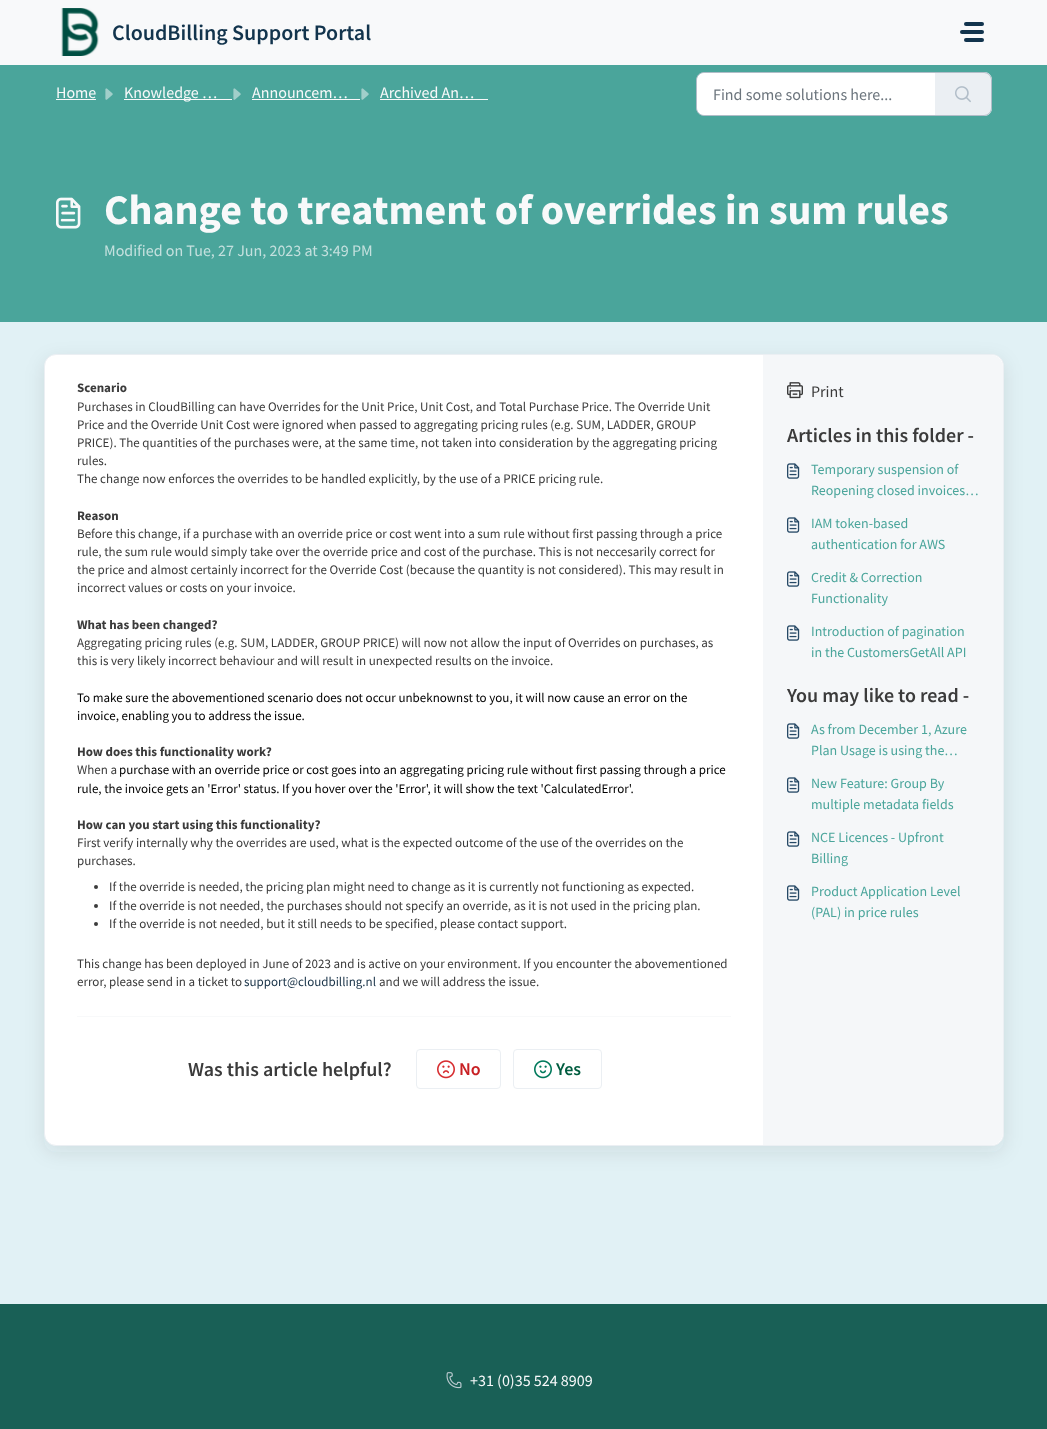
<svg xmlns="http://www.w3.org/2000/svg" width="1047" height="1429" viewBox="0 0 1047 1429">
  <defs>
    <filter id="blur1" x="-50%" y="-200%" width="200%" height="500%"><feGaussianBlur stdDeviation="9.5"/></filter>
  </defs>
  <rect width="100%" height="100%" fill="#e1f1f5"/>
  <rect x="0" y="0" width="1047" height="65" fill="#f8f9fa"/>
  <image x="61" y="8" width="38" height="48" href="img1.png"/>
  <text x="112" y="40" font-family="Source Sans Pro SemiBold" font-size="22" font-weight="600" fill="#12344d">CloudBilling Support Portal</text>
  <rect x="964" y="22" width="20" height="4" rx="2" fill="#12344d"/>
  <rect x="960" y="30" width="24" height="4" rx="2" fill="#12344d"/>
  <rect x="964" y="38" width="20" height="4" rx="2" fill="#12344d"/>
  <rect x="0" y="65" width="1047" height="257" fill="#4aa59b"/>
  <text x="56" y="98" font-family="Source Sans Pro" font-size="16" fill="#f8f9fa">Home</text>
  <rect x="56" y="99" width="40" height="1" fill="#f8f9fa"/>
  <image x="105" y="88" width="8" height="12" href="img2.png"/>
  <rect x="124" y="99" width="108" height="1" fill="#f8f9fa"/>
  <text x="124" y="98" font-family="Source Sans Pro" font-size="16" fill="#f8f9fa">Knowledge …</text>
  <image x="233" y="88" width="8" height="12" href="img2.png"/>
  <text x="252" y="98" font-family="Source Sans Pro" font-size="16" fill="#f8f9fa">Announcem…</text>
  <rect x="252" y="99" width="108" height="1" fill="#f8f9fa"/>
  <image x="361" y="88" width="8" height="12" href="img2.png"/>
  <text x="380" y="98" font-family="Source Sans Pro" font-size="16" fill="#f8f9fa">Archived An…</text>
  <rect x="380" y="99" width="108" height="1" fill="#f8f9fa"/>
  <path d="M704 72.5H935.5V115.5H704C700 115.5 696.5 112 696.5 108V80C696.5 76 700 72.5 704 72.5Z" fill="#ffffff" stroke="#b1bdc8"/>
  <text x="713" y="100" font-family="Source Sans Pro" font-size="16" fill="#6c757d">Find some solutions here...</text>
  <path d="M935 72H984C988.5 72 992 75.5 992 80V108C992 112.5 988.5 116 984 116H935Z" fill="#ebeff3"/>
  <path d="M935 72H984C988 72 992 76 992 80V108C992 112 988 116 984 116H935ZM935 73H984C988 73 991 76 991 80V108C991 112 988 115 984 115H935Z" fill="#b1bdc8" fill-rule="evenodd"/>
  <image x="955" y="86" width="16" height="17" href="img3.png"/>
  <image x="56" y="197" width="25" height="32" href="img4.png"/>
  <text x="104" y="224" font-family="Source Sans Pro" font-size="42" font-weight="bold" fill="#f8f9fa">Change to treatment of overrides in sum rules</text>
  <text x="104" y="256" font-family="Source Sans Pro" font-size="16" fill="#c4e0de">Modified on Tue, 27 Jun, 2023 at 3:49 PM</text>
  <rect x="44" y="360" width="960" height="792" rx="12" fill="#27313a" fill-opacity="0.1" filter="url(#blur1)"/>
  <rect x="44.5" y="354.5" width="959" height="791" rx="11.5" fill="#ffffff" stroke="#ebeff3"/>
  <text x="77" y="392" font-family="Source Sans Pro" font-size="13" font-weight="bold" fill="#3b3b3b">Scenario</text>
  <text x="77" y="411" font-family="Source Sans Pro" font-size="13" fill="#3b3b3b">Purchases in CloudBilling can have Overrides for the Unit Price, Unit Cost, and Total Purchase Price. The Override Unit</text>
  <text x="77" y="429" font-family="Source Sans Pro" font-size="13" fill="#3b3b3b">Price and the Override Unit Cost were ignored when passed to aggregating pricing rules (e.g. SUM, LADDER, GROUP</text>
  <text x="77" y="447" font-family="Source Sans Pro" font-size="13" fill="#3b3b3b">PRICE). The quantities of the purchases were, at the same time, not taken into consideration by the aggregating pricing</text>
  <text x="77" y="465" font-family="Source Sans Pro" font-size="13" fill="#3b3b3b">rules.</text>
  <text x="77" y="483" font-family="Source Sans Pro" font-size="13" fill="#3b3b3b">The change now enforces the overrides to be handled explicitly, by the use of a PRICE pricing rule.</text>
  <text x="77" y="520" font-family="Source Sans Pro" font-size="13" font-weight="bold" fill="#3b3b3b">Reason</text>
  <text x="77" y="538" font-family="Source Sans Pro" font-size="13" fill="#3b3b3b">Before this change, if a purchase with an override price or cost went into a sum rule without first passing through a price</text>
  <text x="77" y="556" font-family="Source Sans Pro" font-size="13" fill="#3b3b3b">rule, the sum rule would simply take over the override price and cost of the purchase. This is not neccesarily correct for</text>
  <text x="77" y="574" font-family="Source Sans Pro" font-size="13" fill="#3b3b3b">the price and almost certainly incorrect for the Override Cost (because the quantity is not considered). This may result in</text>
  <text x="77" y="592" font-family="Source Sans Pro" font-size="13" fill="#3b3b3b">incorrect values or costs on your invoice.</text>
  <text x="77" y="629" font-family="Source Sans Pro" font-size="13" font-weight="bold" fill="#3b3b3b">What has been changed?</text>
  <text x="77" y="647" font-family="Source Sans Pro" font-size="13" fill="#3b3b3b">Aggregating pricing rules (e.g. SUM, LADDER, GROUP PRICE) will now not allow the input of Overrides on purchases, as</text>
  <text x="77" y="665" font-family="Source Sans Pro" font-size="13" fill="#3b3b3b">this is very likely incorrect behaviour and will result in unexpected results on the invoice.</text>
  <text x="77" y="702" font-family="Source Sans Pro" font-size="13" fill="#000000">To make sure the abovementioned scenario does not occur unbeknownst to you, it will now cause an error on the</text>
  <text x="77" y="720" font-family="Source Sans Pro" font-size="13" fill="#000000">invoice, enabling you to address the issue.</text>
  <text x="77" y="756" font-family="Source Sans Pro" font-size="13" font-weight="bold" fill="#3b3b3b">How does this functionality work?</text>
  <text x="77" y="774" font-family="Source Sans Pro" font-size="13" fill="#3b3b3b">When a</text>
  <text x="119" y="774" font-family="Source Sans Pro" font-size="13" fill="#000000">purchase with an override price or cost goes into an aggregating pricing rule without first passing through a price</text>
  <text x="77" y="793" font-family="Source Sans Pro" font-size="13" fill="#000000">rule, the invoice gets an 'Error' status. If you hover over the 'Error', it will show the text 'CalculatedError'.</text>
  <text x="77" y="829" font-family="Source Sans Pro" font-size="13" font-weight="bold" fill="#3b3b3b">How can you start using this functionality?</text>
  <text x="77" y="847" font-family="Source Sans Pro" font-size="13" fill="#3b3b3b">First verify internally why the overrides are used, what is the expected outcome of the use of the overrides on the</text>
  <text x="77" y="865" font-family="Source Sans Pro" font-size="13" fill="#3b3b3b">purchases.</text>
  <circle cx="96" cy="887" r="2" fill="#3b3b3b"/>
  <text x="109" y="891" font-family="Source Sans Pro" font-size="13" fill="#3b3b3b">If the override is needed, the pricing plan might need to change as it is currently not functioning as expected.</text>
  <circle cx="96" cy="906" r="2" fill="#3b3b3b"/>
  <text x="109" y="910" font-family="Source Sans Pro" font-size="13" fill="#3b3b3b">If the override is not needed, the purchases should not specify an override, as it is not used in the pricing plan.</text>
  <circle cx="96" cy="924" r="2" fill="#3b3b3b"/>
  <text x="109" y="928" font-family="Source Sans Pro" font-size="13" fill="#3b3b3b">If the override is not needed, but it still needs to be specified, please contact support.</text>
  <text x="77" y="968" font-family="Source Sans Pro" font-size="13" fill="#3b3b3b">This change has been deployed in June of 2023 and is active on your environment. If you encounter the abovementioned</text>
  <text x="77" y="986" font-family="Source Sans Pro" font-size="13" fill="#3b3b3b">error, please send in a ticket to</text>
  <text x="244" y="986" font-family="Source Sans Pro" font-size="13" fill="#183247">support@cloudbilling.nl</text>
  <text x="379" y="986" font-family="Source Sans Pro" font-size="13" fill="#3b3b3b">and we will address the issue.</text>
  <rect x="77" y="1016" width="654" height="1" fill="#f8f9fa"/>
  <text x="188" y="1076" font-family="Source Sans Pro SemiBold" font-size="20" font-weight="600" fill="#3b3b3b">Was this article helpful?</text>
  <rect x="416.5" y="1049.5" width="84" height="39" rx="3.5" fill="none" stroke="#ebeff3"/>
  <image x="437" y="1060" width="18" height="19" href="img5.png"/>
  <text x="459" y="1075" font-family="Source Sans Pro SemiBold" font-size="18" font-weight="600" fill="#c82124">No</text>
  <rect x="513.5" y="1049.5" width="88" height="39" rx="3.5" fill="none" stroke="#ebeff3"/>
  <image x="534" y="1060" width="18" height="19" href="img6.png"/>
  <text x="556" y="1075" font-family="Source Sans Pro SemiBold" font-size="18" font-weight="600" fill="#005c3f">Yes</text>
  <path d="M763 355H991C997.5 355 1003 360.5 1003 367V1133C1003 1139.5 997.5 1145 991 1145H763Z" fill="#f5f7f9"/>
  <image x="787" y="382" width="16" height="17" href="img7.png"/>
  <text x="811" y="397" font-family="Source Sans Pro" font-size="16" fill="#3b3b3b">Print</text>
  <text x="787" y="442" font-family="Source Sans Pro SemiBold" font-size="20" font-weight="600" fill="#3b3b3b">Articles in this folder -</text>
  <image x="787" y="463" width="13" height="16" href="img8.png"/>
  <text x="811" y="474" font-family="Source Sans Pro" font-size="14" fill="#4aa59b">Temporary suspension of</text>
  <text x="811" y="495" font-family="Source Sans Pro" font-size="14" fill="#4aa59b">Reopening closed invoices…</text>
  <image x="787" y="517" width="13" height="16" href="img8.png"/>
  <text x="811" y="528" font-family="Source Sans Pro" font-size="14" fill="#4aa59b">IAM token-based</text>
  <text x="811" y="549" font-family="Source Sans Pro" font-size="14" fill="#4aa59b">authentication for AWS</text>
  <image x="787" y="571" width="13" height="16" href="img8.png"/>
  <text x="811" y="582" font-family="Source Sans Pro" font-size="14" fill="#4aa59b">Credit &amp; Correction</text>
  <text x="811" y="603" font-family="Source Sans Pro" font-size="14" fill="#4aa59b">Functionality</text>
  <image x="787" y="625" width="13" height="16" href="img8.png"/>
  <text x="811" y="636" font-family="Source Sans Pro" font-size="14" fill="#4aa59b">Introduction of pagination</text>
  <text x="811" y="657" font-family="Source Sans Pro" font-size="14" fill="#4aa59b">in the CustomersGetAll API</text>
  <text x="787" y="702" font-family="Source Sans Pro SemiBold" font-size="20" font-weight="600" fill="#3b3b3b">You may like to read -</text>
  <image x="787" y="723" width="13" height="16" href="img8.png"/>
  <text x="811" y="734" font-family="Source Sans Pro" font-size="14" fill="#4aa59b">As from December 1, Azure</text>
  <text x="811" y="755" font-family="Source Sans Pro" font-size="14" fill="#4aa59b">Plan Usage is using the…</text>
  <image x="787" y="777" width="13" height="16" href="img8.png"/>
  <text x="811" y="788" font-family="Source Sans Pro" font-size="14" fill="#4aa59b">New Feature: Group By</text>
  <text x="811" y="809" font-family="Source Sans Pro" font-size="14" fill="#4aa59b">multiple metadata fields</text>
  <image x="787" y="831" width="13" height="16" href="img8.png"/>
  <text x="811" y="842" font-family="Source Sans Pro" font-size="14" fill="#4aa59b">NCE Licences - Upfront</text>
  <text x="811" y="863" font-family="Source Sans Pro" font-size="14" fill="#4aa59b">Billing</text>
  <image x="787" y="885" width="13" height="16" href="img8.png"/>
  <text x="811" y="896" font-family="Source Sans Pro" font-size="14" fill="#4aa59b">Product Application Level</text>
  <text x="811" y="917" font-family="Source Sans Pro" font-size="14" fill="#4aa59b">(PAL) in price rules</text>
  <rect x="0" y="1304" width="1047" height="125" fill="#196056"/>
  <image x="446" y="1372" width="16" height="17" href="img9.png"/>
  <text x="470" y="1386" font-family="Source Sans Pro" font-size="16" fill="#f8f9fa">+31 (0)35 524 8909</text>
</svg>
